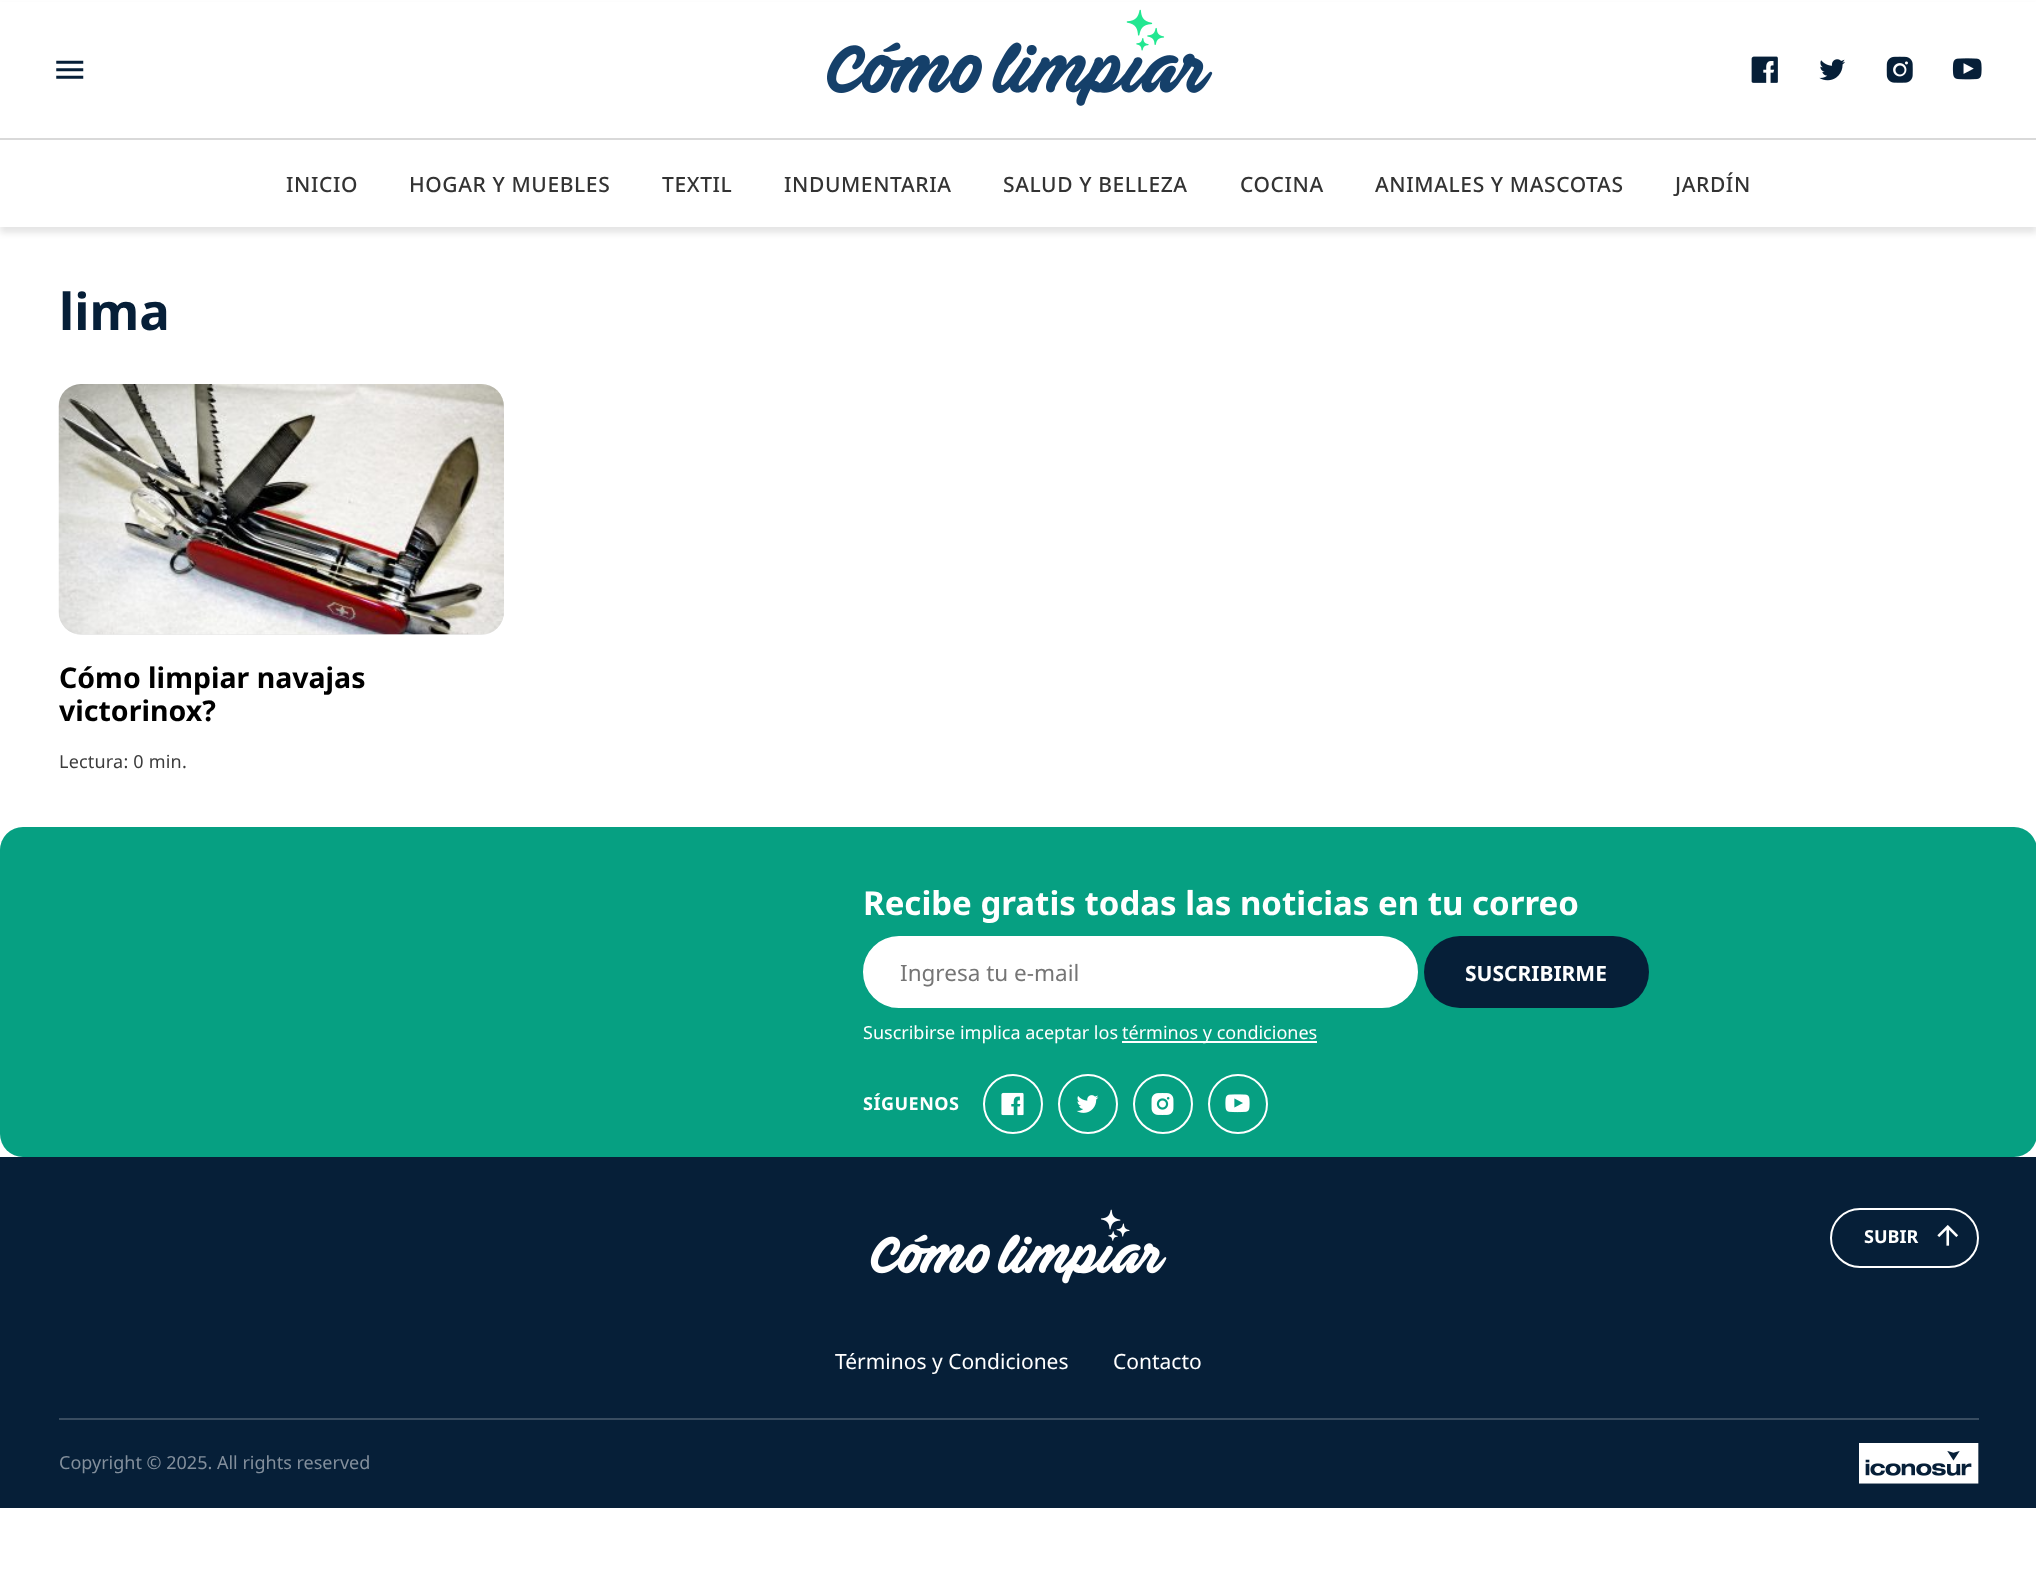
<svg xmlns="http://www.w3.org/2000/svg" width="2036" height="1584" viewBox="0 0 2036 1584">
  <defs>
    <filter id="blur1" x="-50%" y="-200%" width="200%" height="500%"><feGaussianBlur stdDeviation="3"/></filter>
  </defs>
  <rect width="100%" height="100%" fill="#ffffff"/>
  <rect x="0" y="6" width="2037" height="227" fill="#000000" fill-opacity="0.1" filter="url(#blur1)"/>
  <rect x="0" y="2" width="2036" height="225" fill="#ffffff"/>
  <rect x="0" y="138" width="2036" height="2" fill="#d9d9d9"/>
  <image x="56" y="60" width="28" height="19" href="img1.png"/>
  <image x="827" y="9" width="386" height="97" href="img2.png"/>
  <image x="1751" y="56" width="27" height="27" href="img3.png"/>
  <image x="1819" y="59" width="26" height="22" href="img4.png"/>
  <image x="1886" y="56" width="27" height="27" href="img5.png"/>
  <image x="1952" y="58" width="30" height="22" href="img6.png"/>
  <text x="286" y="192" font-family="Noto Sans" font-size="21" font-weight="500" letter-spacing="0.6" fill="#333333">INICIO</text>
  <text x="409" y="192" font-family="Noto Sans" font-size="21" font-weight="500" letter-spacing="0.6" fill="#333333">HOGAR Y MUEBLES</text>
  <text x="662" y="192" font-family="Noto Sans" font-size="21" font-weight="500" letter-spacing="0.6" fill="#333333">TEXTIL</text>
  <text x="784" y="192" font-family="Noto Sans" font-size="21" font-weight="500" letter-spacing="0.6" fill="#333333">INDUMENTARIA</text>
  <text x="1003" y="192" font-family="Noto Sans" font-size="21" font-weight="500" letter-spacing="0.6" fill="#333333">SALUD Y BELLEZA</text>
  <text x="1240" y="192" font-family="Noto Sans" font-size="21" font-weight="500" letter-spacing="0.6" fill="#333333">COCINA</text>
  <text x="1375" y="192" font-family="Noto Sans" font-size="21" font-weight="500" letter-spacing="0.6" fill="#333333">ANIMALES Y MASCOTAS</text>
  <text x="1675" y="192" font-family="Noto Sans" font-size="21" font-weight="500" letter-spacing="0.6" fill="#333333">JARDÍN</text>
  <text x="59" y="330" font-family="Noto Sans" font-size="51" font-weight="bold" fill="#061f38">lima</text>
  <rect x="59" y="384" width="445" height="251" rx="23" fill="#eaeaea"/>
  <image x="58" y="384" width="446" height="251" href="img7.png"/>
  <text x="59" y="688" font-family="Noto Sans" font-size="28.5" font-weight="bold" fill="#000000">Cómo limpiar navajas</text>
  <text x="59" y="721" font-family="Noto Sans" font-size="28.5" font-weight="bold" fill="#000000">victorinox?</text>
  <text x="59" y="768" font-family="Noto Sans" font-size="18" letter-spacing="0.2" fill="#3c3c3c">Lectura: 0 min.</text>
  <rect x="0" y="827" width="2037" height="330" rx="23" fill="#06a082"/>
  <text x="863" y="915" font-family="Noto Sans" font-size="33" font-weight="bold" fill="#ffffff">Recibe gratis todas las noticias en tu correo</text>
  <rect x="864" y="937" width="553" height="70" rx="35" fill="#ffffff" stroke="#ffffff" stroke-width="2"/>
  <text x="900" y="981" font-family="Noto Sans" font-size="22.5" fill="#757575">Ingresa tu e-mail</text>
  <rect x="1424" y="936" width="225" height="72" rx="36" fill="#061f38"/>
  <text x="1465" y="981" font-family="Noto Sans" font-size="21" font-weight="bold" fill="#ffffff">SUSCRIBIRME</text>
  <text x="863" y="1039" font-family="Noto Sans" font-size="18" fill="#ffffff">Suscribirse implica aceptar los</text>
  <rect x="1122" y="1041" width="195" height="2" fill="#ffffff"/>
  <text x="1122" y="1039" font-family="Noto Sans" font-size="18" fill="#ffffff">términos y condiciones</text>
  <text x="863" y="1110" font-family="Noto Sans" font-size="18" font-weight="bold" letter-spacing="0.5" fill="#ffffff">SÍGUENOS</text>
  <circle cx="1013" cy="1104" r="29" fill="none" stroke="#ffffff" stroke-width="2"/>
  <image x="1001" y="1092" width="23" height="24" href="img8.png"/>
  <circle cx="1088" cy="1104" r="29" fill="none" stroke="#ffffff" stroke-width="2"/>
  <image x="1076" y="1095" width="23" height="18" href="img9.png"/>
  <circle cx="1163" cy="1104" r="29" fill="none" stroke="#ffffff" stroke-width="2"/>
  <image x="1151" y="1093" width="23" height="22" href="img10.png"/>
  <circle cx="1238" cy="1104" r="29" fill="none" stroke="#ffffff" stroke-width="2"/>
  <image x="1225" y="1094" width="25" height="19" href="img11.png"/>
  <rect x="0" y="1157" width="2036" height="351" fill="#061f38"/>
  <image x="870" y="1209" width="297" height="75" href="img12.png"/>
  <rect x="1831" y="1209" width="147" height="58" rx="29" fill="none" stroke="#ffffff" stroke-width="2"/>
  <text x="1864" y="1243" font-family="Noto Sans" font-size="18" font-weight="bold" fill="#ffffff">SUBIR</text>
  <image x="1937" y="1225" width="22" height="21" href="img13.png"/>
  <rect x="59" y="1418" width="1920" height="2" fill="#384c60"/>
  <text x="835" y="1369" font-family="Noto Sans" font-size="21" fill="#ffffff">Términos y Condiciones</text>
  <text x="1113" y="1369" font-family="Noto Sans" font-size="21" fill="#ffffff">Contacto</text>
  <text x="59" y="1469" font-family="Noto Sans" font-size="18" fill="#838f9c">Copyright © 2025. All rights reserved</text>
  <image x="1859" y="1443" width="120" height="41" href="img14.png"/>
</svg>
